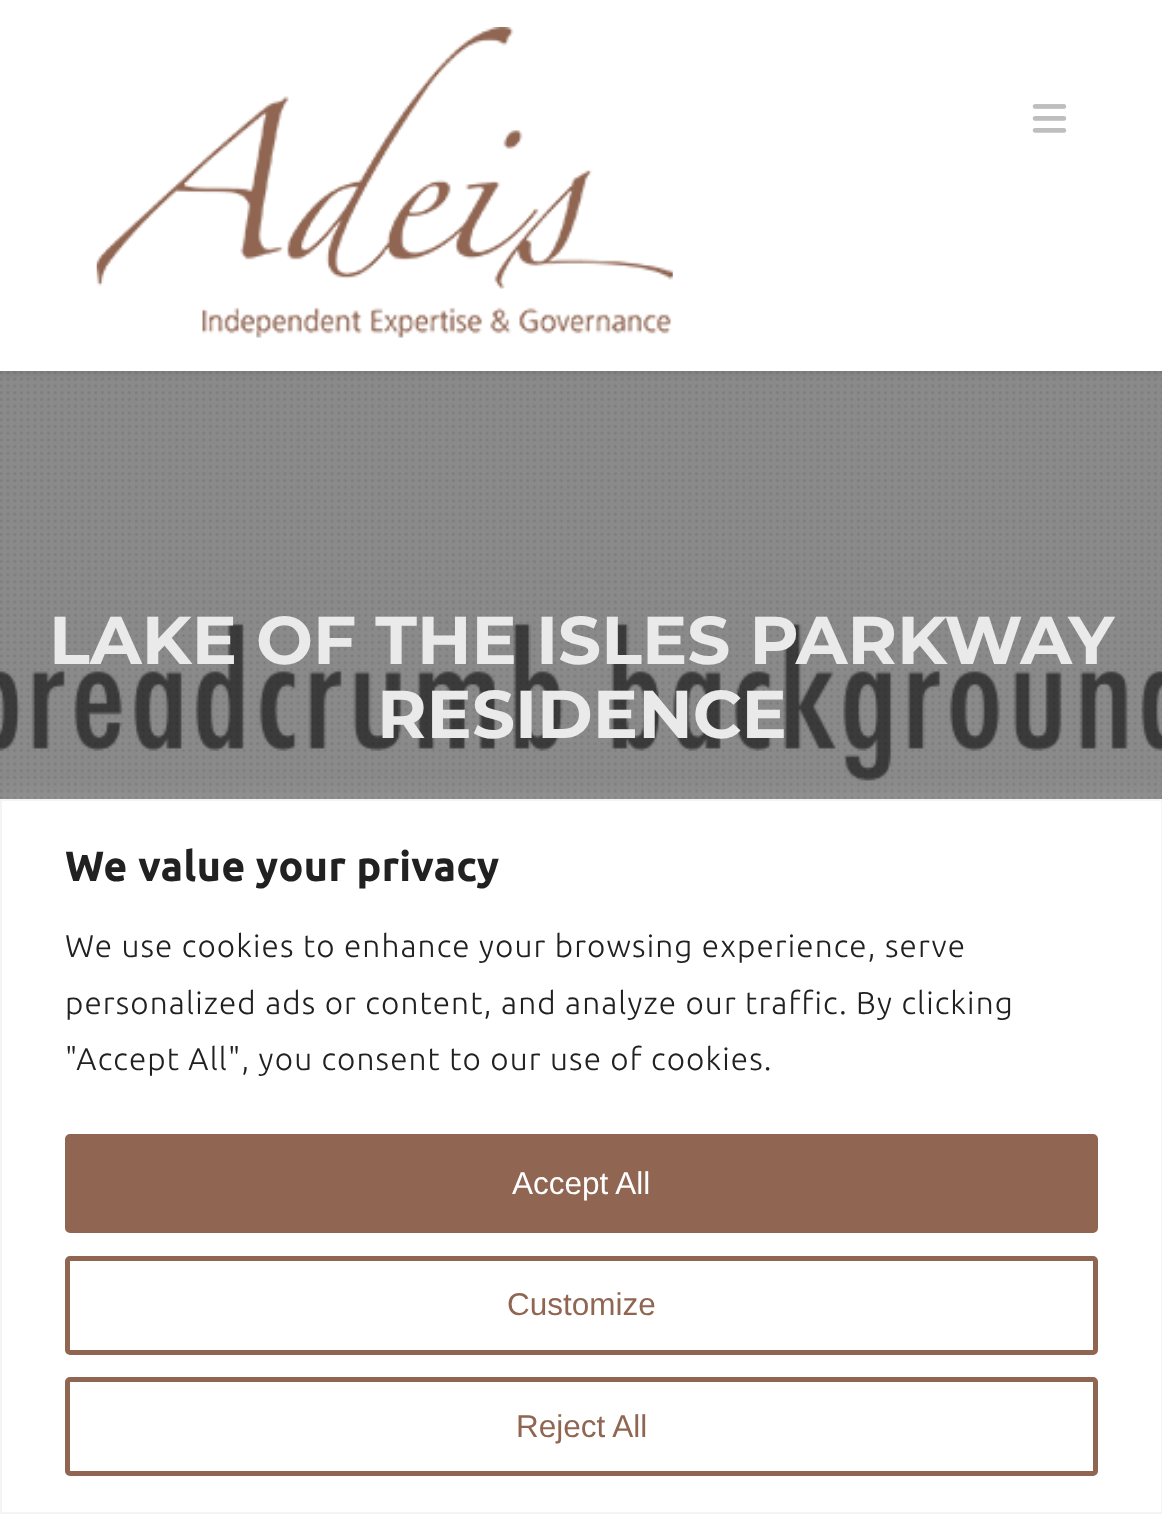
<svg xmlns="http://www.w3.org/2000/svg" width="1162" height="1514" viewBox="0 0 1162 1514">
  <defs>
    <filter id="blur1" x="-50%" y="-200%" width="200%" height="500%"><feGaussianBlur stdDeviation="3.5"/></filter>
    <filter id="blur2" x="-50%" y="-200%" width="200%" height="500%"><feGaussianBlur stdDeviation="11"/></filter>
  </defs>
  <rect width="100%" height="100%" fill="#ffffff"/>
  <image x="0" y="371" width="1162" height="1" href="img1.png"/>
  <image x="0" y="371" width="1162" height="428" href="img4.png"/>
  <rect x="0" y="371" width="1162" height="428" fill="#000000" fill-opacity="0.43"/>
  <image x="0" y="371" width="1162" height="428" href="img5.png"/>
  <rect x="-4" y="-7" width="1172" height="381" fill="#000000" fill-opacity="0.1" filter="url(#blur1)"/>
  <rect x="0" y="0" width="1162" height="371" fill="#ffffff"/>
  <image x="96" y="27" width="577" height="311" href="img2.png"/>
  <image x="1032" y="104" width="35" height="29" href="img3.png"/>
  <text x="49" y="664" font-family="Montserrat" font-size="67.5" font-weight="bold" fill="#eaeaea">LAKE OF THE ISLES PARKWAY</text>
  <text x="377" y="738" font-family="Montserrat" font-size="67.5" font-weight="bold" fill="#eaeaea">RESIDENCE</text>
  <rect x="0" y="797" width="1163" height="715" fill="#acabab" fill-opacity="0.3" filter="url(#blur2)"/>
  <rect x="1" y="800" width="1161" height="713" fill="#ffffff" stroke="#f4f4f4" stroke-width="2"/>
  <text x="65" y="881" font-family="Ubuntu" font-size="40.5" font-weight="bold" letter-spacing="1.12" fill="#212121">We value your privacy</text>
  <text x="65" y="957" font-family="Ubuntu" font-size="31.5" font-weight="300" letter-spacing="1.12" fill="#212121">We use cookies to enhance your browsing experience, serve</text>
  <text x="65" y="1014" font-family="Ubuntu" font-size="31.5" font-weight="300" letter-spacing="1.12" fill="#212121">personalized ads or content, and analyze our traffic. By clicking</text>
  <text x="65" y="1070" font-family="Ubuntu" font-size="31.5" font-weight="300" letter-spacing="1.12" fill="#212121">"Accept All", you consent to our use of cookies.</text>
  <rect x="67.5" y="1136.5" width="1028" height="94" rx="2.5" fill="#906653" stroke="#906653" stroke-width="5"/>
  <text x="512" y="1194" font-family="Liberation Sans" font-size="31.5" fill="#ffffff">Accept All</text>
  <rect x="67.5" y="1258.5" width="1028" height="94" rx="2.5" fill="none" stroke="#906653" stroke-width="5"/>
  <text x="507" y="1315" font-family="Liberation Sans" font-size="31.5" fill="#906653">Customize</text>
  <rect x="67.5" y="1379.5" width="1028" height="94" rx="2.5" fill="none" stroke="#906653" stroke-width="5"/>
  <text x="516" y="1437" font-family="Liberation Sans" font-size="31.5" fill="#906653">Reject All</text>
</svg>
